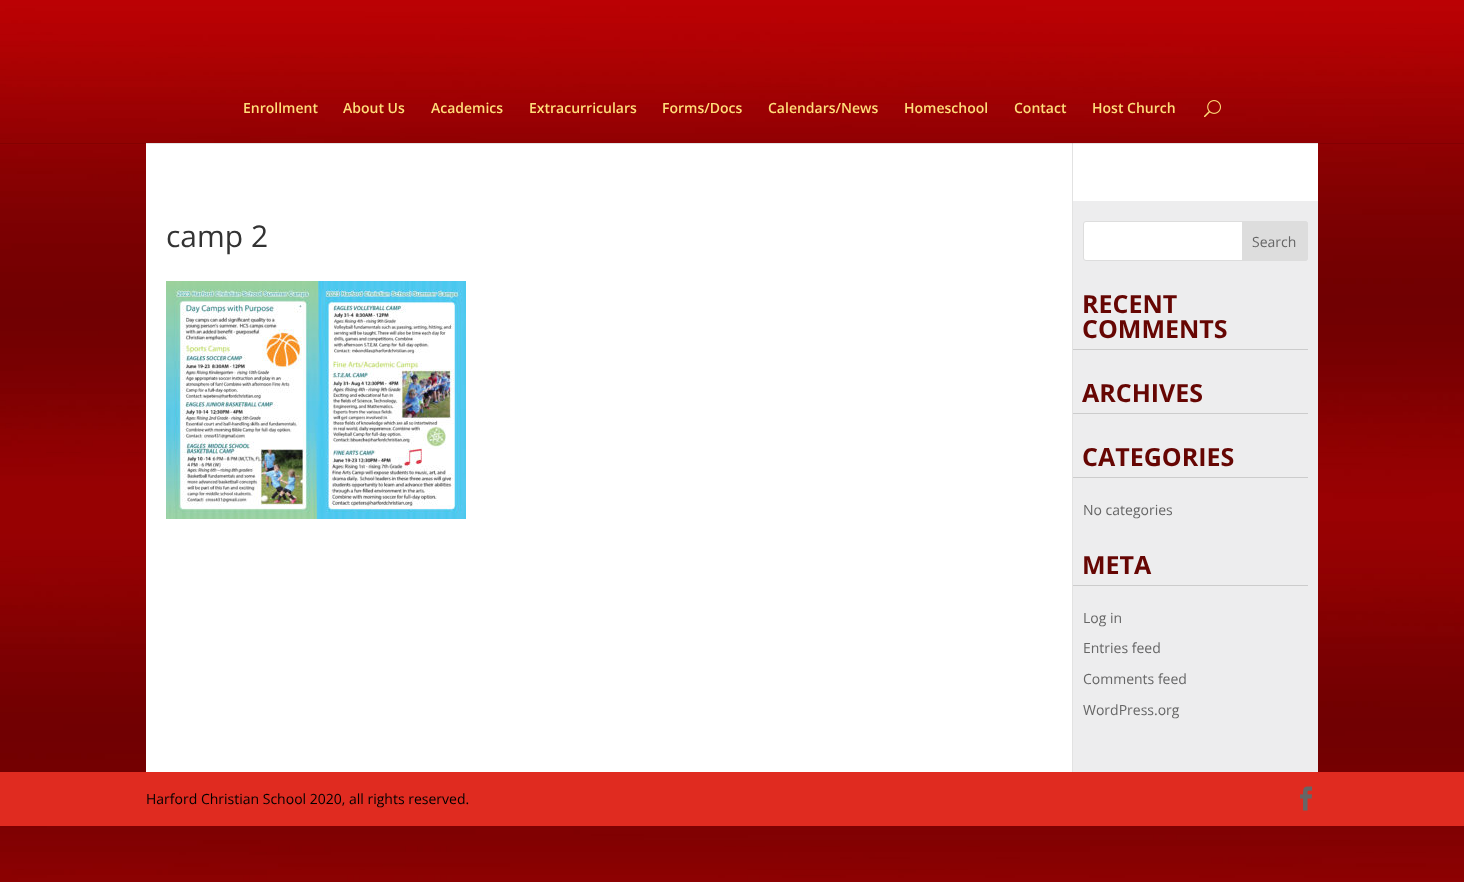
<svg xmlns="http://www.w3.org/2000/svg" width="1464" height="882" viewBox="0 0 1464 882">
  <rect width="100%" height="100%" fill="#ffffff"/>
  <image x="0" y="0" width="1464" height="882" href="img1.png"/>
  <rect x="146" y="143" width="1172" height="629" fill="#ffffff"/>
  <rect x="1073" y="201" width="245" height="571" fill="#ededee"/>
  <rect x="1072" y="349" width="236" height="1" fill="#cccccc"/>
  <rect x="1072" y="413" width="236" height="1" fill="#cccccc"/>
  <rect x="1072" y="477" width="236" height="1" fill="#cccccc"/>
  <rect x="1072" y="585" width="236" height="1" fill="#cccccc"/>
  <rect x="1072" y="143" width="1" height="629" fill="#e2e2e2"/>
  <rect x="0" y="143" width="1464" height="1" fill="#000000" fill-opacity="0.1"/>
  <text x="243" y="113" font-family="Open Sans" font-size="14" font-weight="600" fill="#ffde7a">Enrollment</text>
  <text x="343" y="113" font-family="Open Sans" font-size="14" font-weight="600" fill="#ffde7a">About Us</text>
  <text x="431" y="113" font-family="Open Sans" font-size="14" font-weight="600" fill="#ffde7a">Academics</text>
  <text x="529" y="113" font-family="Open Sans" font-size="14" font-weight="600" fill="#ffde7a">Extracurriculars</text>
  <text x="662" y="113" font-family="Open Sans" font-size="14" font-weight="600" fill="#ffde7a">Forms/Docs</text>
  <text x="768" y="113" font-family="Open Sans" font-size="14" font-weight="600" fill="#ffde7a">Calendars/News</text>
  <text x="904" y="113" font-family="Open Sans" font-size="14" font-weight="600" fill="#ffde7a">Homeschool</text>
  <text x="1014" y="113" font-family="Open Sans" font-size="14" font-weight="600" fill="#ffde7a">Contact</text>
  <text x="1092" y="113" font-family="Open Sans" font-size="14" font-weight="600" fill="#ffde7a">Host Church</text>
  <image x="1204" y="100" width="17" height="18" href="img2.png"/>
  <text x="166" y="247" font-family="Open Sans" font-size="30" fill="#333333">camp 2</text>
  <image x="166" y="281" width="300" height="238" href="img3.png"/>
  <rect x="1083.5" y="221.5" width="224" height="39" rx="2.5" fill="#ffffff" stroke="#dddddd"/>
  <path d="M1242.5 221.5H1305C1306.5 221.5 1307.5 222.5 1307.5 224V258C1307.5 259.5 1306.5 260.5 1305 260.5H1242.5Z" fill="#dddddd" stroke="#dddddd"/>
  <text x="1252" y="247" font-family="Open Sans" font-size="14" fill="#666666">Search</text>
  <text x="1082" y="313" font-family="Open Sans" font-size="25" font-weight="bold" fill="#660603">RECENT</text>
  <text x="1082" y="338" font-family="Open Sans" font-size="25" font-weight="bold" fill="#660603">COMMENTS</text>
  <text x="1082" y="402" font-family="Open Sans" font-size="25" font-weight="bold" fill="#660603">ARCHIVES</text>
  <text x="1082" y="466" font-family="Open Sans" font-size="25" font-weight="bold" fill="#660603">CATEGORIES</text>
  <text x="1083" y="515" font-family="Open Sans" font-size="14" fill="#666666">No categories</text>
  <text x="1082" y="574" font-family="Open Sans" font-size="25" font-weight="bold" fill="#660603">META</text>
  <text x="1083" y="623" font-family="Open Sans" font-size="14" fill="#666666">Log in</text>
  <text x="1083" y="653" font-family="Open Sans" font-size="14" fill="#666666">Entries feed</text>
  <text x="1083" y="684" font-family="Open Sans" font-size="14" fill="#666666">Comments feed</text>
  <text x="1083" y="715" font-family="Open Sans" font-size="14" fill="#666666">WordPress.org</text>
  <rect x="0" y="772" width="1464" height="54" fill="#e02b20"/>
  <text x="146" y="804" font-family="Open Sans" font-size="14" fill="#000000">Harford Christian School 2020, all rights reserved.</text>
  <image x="1300" y="786" width="12" height="25" href="img4.png"/>
</svg>
